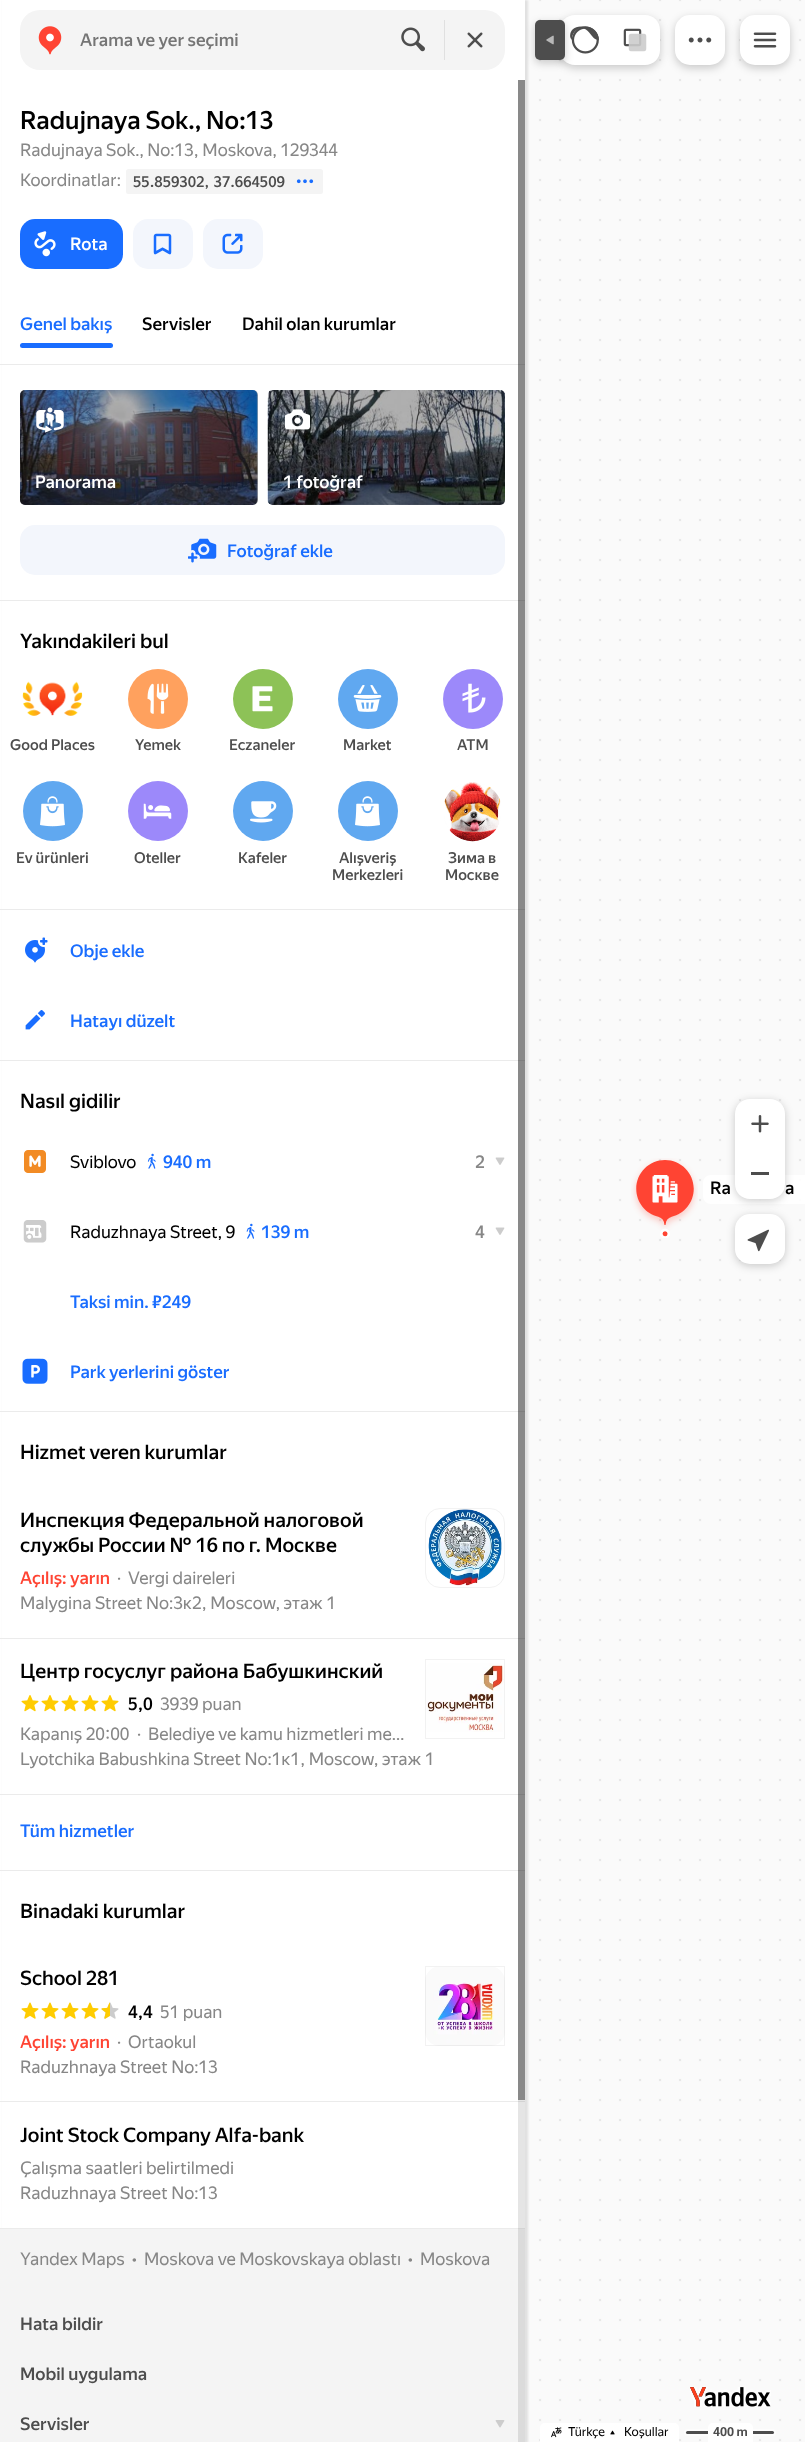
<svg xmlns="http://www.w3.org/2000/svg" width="805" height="2442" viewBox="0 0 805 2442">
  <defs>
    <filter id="blur1" x="-50%" y="-200%" width="200%" height="500%"><feGaussianBlur stdDeviation="1"/></filter>
    <filter id="blur2" x="-50%" y="-200%" width="200%" height="500%"><feGaussianBlur stdDeviation="4"/></filter>
    <clipPath id="clip1"><rect x="344" y="736" width="47" height="18"/></clipPath>
    <clipPath id="clip2"><rect x="20" y="2031" width="90" height="20"/></clipPath>
  </defs>
  <rect width="100%" height="100%" fill="#ffffff"/>
  <image x="525" y="0" width="280" height="2442" href="img1.png"/>
  <rect x="3" y="0" width="525" height="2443" fill="#000000" fill-opacity="0.1" filter="url(#blur1)"/>
  <rect x="560" y="18" width="100" height="50" rx="15" fill="#000000" fill-opacity="0.2" filter="url(#blur2)"/>
  <path d="M575 15H610V65H575C566.5 65 560 58.5 560 50V30C560 21.5 566.5 15 575 15Z" fill="#ffffff"/>
  <image x="570" y="26" width="29" height="28" href="img5.png"/>
  <rect x="535" y="23" width="30" height="40" rx="5" fill="#000000" fill-opacity="0.2" filter="url(#blur2)"/>
  <rect x="2" y="0" width="523" height="2228" fill="#ffffff"/>
  <rect x="20" y="10" width="485" height="60" rx="20" fill="#f4f4f4"/>
  <image x="38" y="26" width="24" height="29" href="img2.png"/>
  <text x="80" y="46" font-family="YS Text" font-size="17.5" font-weight="500" fill="#757575">Arama ve yer seçimi</text>
  <image x="401" y="27" width="24" height="25" href="img3.png"/>
  <rect x="444" y="20" width="1" height="40" fill="#e0e0e0"/>
  <image x="467" y="32" width="16" height="16" href="img4.png"/>
  <path d="M610 15H645C653.5 15 660 21.5 660 30V50C660 58.5 653.5 65 645 65H610Z" fill="#ffffff"/>
  <image x="623" y="28" width="24" height="24" href="img6.png"/>
  <rect x="675" y="18" width="50" height="50" rx="15" fill="#000000" fill-opacity="0.2" filter="url(#blur2)"/>
  <rect x="675" y="15" width="50" height="50" rx="15" fill="#ffffff"/>
  <image x="688" y="37" width="24" height="6" href="img7.png"/>
  <rect x="740" y="18" width="50" height="50" rx="15" fill="#000000" fill-opacity="0.2" filter="url(#blur2)"/>
  <rect x="740" y="15" width="50" height="50" rx="15" fill="#ffffff"/>
  <image x="753" y="32" width="24" height="16" href="img8.png"/>
  <path d="M711 1175H805V1204H711C706.5 1204 703 1200.5 703 1196V1183C703 1178.5 706.5 1175 711 1175Z" fill="#ffffff" fill-opacity="0.9"/>
  <rect x="735" y="1101" width="50" height="100" rx="15" fill="#000000" fill-opacity="0.2" filter="url(#blur2)"/>
  <path d="M750 1099H770C778.5 1099 785 1105.5 785 1114V1149H735V1114C735 1105.5 741.5 1099 750 1099Z" fill="#ffffff"/>
  <image x="751" y="1115" width="18" height="18" href="img9.png"/>
  <path d="M735 1149H785V1184C785 1192.5 778.5 1199 770 1199H750C741.5 1199 735 1192.5 735 1184Z" fill="#ffffff"/>
  <rect x="751" y="1172" width="18" height="3" fill="#4d4d4d"/>
  <rect x="735" y="1216" width="50" height="50" rx="15" fill="#000000" fill-opacity="0.2" filter="url(#blur2)"/>
  <rect x="735" y="1214" width="50" height="50" rx="15" fill="#ffffff"/>
  <image x="747" y="1229" width="22" height="23" href="img10.png"/>
  <rect x="535" y="20" width="30" height="40" rx="5" fill="#4d4d4d"/>
  <image x="546" y="35" width="8" height="10" href="img11.png"/>
  <text x="20" y="129" font-family="YS Text" font-size="25" font-weight="500" fill="#000000">Radujnaya Sok., No:13</text>
  <text x="20" y="156" font-family="YS Text" font-size="17.5" fill="#878787">Radujnaya Sok., No:13, Moskova, 129344</text>
  <text x="20" y="186" font-family="YS Text" font-size="17.5" fill="#878787">Koordinatlar:</text>
  <rect x="126" y="169" width="197" height="25" rx="2.5" fill="#f4f4f4"/>
  <text x="133" y="187" font-family="YS Text" font-size="15" font-weight="500" fill="#4d4d4d">55.859302, 37.664509</text>
  <image x="296" y="179" width="18" height="5" href="img12.png"/>
  <rect x="20" y="219" width="103" height="50" rx="15" fill="#196dff"/>
  <image x="34" y="231" width="22" height="26" href="img13.png"/>
  <text x="70" y="250" font-family="YS Text" font-size="17.5" font-weight="500" fill="#ffffff">Rota</text>
  <rect x="133" y="219" width="60" height="50" rx="15" fill="#f3f6fc"/>
  <image x="153" y="233" width="19" height="22" href="img14.png"/>
  <rect x="203" y="219" width="60" height="50" rx="15" fill="#f3f6fc"/>
  <image x="222" y="233" width="21" height="21" href="img15.png"/>
  <text x="20" y="330" font-family="YS Text" font-size="17.5" font-weight="500" fill="#196dff">Genel bakış</text>
  <text x="142" y="330" font-family="YS Text" font-size="17.5" font-weight="500" fill="#000000">Servisler</text>
  <text x="242" y="330" font-family="YS Text" font-size="17.5" font-weight="500" fill="#000000">Dahil olan kurumlar</text>
  <rect x="20" y="343" width="93" height="5" rx="2.5" fill="#196dff"/>
  <rect x="0" y="364" width="525" height="1" fill="#ebebeb"/>
  <rect x="0" y="600" width="525" height="1" fill="#ebebeb"/>
  <image x="20" y="390" width="238" height="115" href="img16.png"/>
  <rect x="20" y="390" width="238" height="115" rx="5" fill="#000000" fill-opacity="0.3"/>
  <image x="36" y="407" width="28" height="26" href="img17.png"/>
  <text x="35" y="488" font-family="YS Text" font-size="17.5" font-weight="500" fill="#ffffff">Panorama</text>
  <image x="267" y="390" width="238" height="115" href="img18.png"/>
  <rect x="268" y="390" width="237" height="115" rx="5" fill="#000000" fill-opacity="0.3"/>
  <image x="285" y="409" width="25" height="21" href="img19.png"/>
  <text x="283" y="488" font-family="YS Text" font-size="17.5" font-weight="500" fill="#ffffff">1 fotoğraf</text>
  <rect x="20" y="525" width="485" height="50" rx="15" fill="#f3f6fc"/>
  <image x="188" y="538" width="29" height="25" href="img20.png"/>
  <text x="227" y="557" font-family="YS Text" font-size="17.5" font-weight="500" fill="#196dff">Fotoğraf ekle</text>
  <rect x="0" y="909" width="525" height="1" fill="#ebebeb"/>
  <text x="20" y="648" font-family="YS Text" font-size="20" font-weight="500" fill="#000000">Yakındakileri bul</text>
  <image x="22" y="681" width="61" height="35" href="img21.png"/>
  <text x="10" y="750" font-family="YS Text" font-size="15" font-weight="500" fill="#4d4d4d">Good Places</text>
  <circle cx="158" cy="699" r="30" fill="#ffa15e"/>
  <image x="147" y="683" width="22" height="31" href="img22.png"/>
  <text x="135" y="750" font-family="YS Text" font-size="15" font-weight="500" fill="#4d4d4d">Yemek</text>
  <circle cx="263" cy="699" r="30" fill="#8dc257"/>
  <image x="252" y="686" width="21" height="26" href="img23.png"/>
  <text x="229" y="750" font-family="YS Text" font-size="15" font-weight="500" fill="#4d4d4d">Eczaneler</text>
  <circle cx="368" cy="699" r="30" fill="#60a8f0"/>
  <image x="353" y="685" width="29" height="27" href="img24.png"/>
  <g clip-path="url(#clip1)">
    <text x="343" y="750" font-family="YS Text" font-size="15" font-weight="500" fill="#4d4d4d">Market</text>
  </g>
  <circle cx="473" cy="699" r="30" fill="#9c89fa"/>
  <image x="462" y="683" width="24" height="30" href="img25.png"/>
  <text x="457" y="750" font-family="YS Text" font-size="15" font-weight="500" fill="#4d4d4d">ATM</text>
  <circle cx="53" cy="811" r="30" fill="#60a8f0"/>
  <image x="40" y="796" width="25" height="31" href="img26.png"/>
  <text x="16" y="863" font-family="YS Text" font-size="15" font-weight="500" fill="#4d4d4d">Ev ürünleri</text>
  <circle cx="158" cy="811" r="30" fill="#9c89fa"/>
  <image x="143" y="803" width="29" height="16" href="img27.png"/>
  <text x="134" y="863" font-family="YS Text" font-size="15" font-weight="500" fill="#4d4d4d">Oteller</text>
  <circle cx="263" cy="811" r="30" fill="#60a8f0"/>
  <image x="250" y="801" width="27" height="22" href="img28.png"/>
  <text x="238" y="863" font-family="YS Text" font-size="15" font-weight="500" fill="#4d4d4d">Kafeler</text>
  <circle cx="368" cy="811" r="30" fill="#60a8f0"/>
  <image x="355" y="796" width="25" height="31" href="img26.png"/>
  <text x="339" y="863" font-family="YS Text" font-size="15" font-weight="500" fill="#4d4d4d">Alışveriş</text>
  <text x="332" y="880" font-family="YS Text" font-size="15" font-weight="500" fill="#4d4d4d">Merkezleri</text>
  <image x="444" y="782" width="57" height="60" href="img29.png"/>
  <text x="448" y="863" font-family="YS Text" font-size="15" font-weight="500" fill="#4d4d4d">Зима в</text>
  <text x="445" y="880" font-family="YS Text" font-size="15" font-weight="500" fill="#4d4d4d">Москве</text>
  <rect x="0" y="1060" width="525" height="1" fill="#ebebeb"/>
  <image x="25" y="937" width="23" height="26" href="img30.png"/>
  <text x="70" y="957" font-family="YS Text" font-size="17.5" font-weight="500" fill="#196dff">Obje ekle</text>
  <image x="25" y="1010" width="20" height="20" href="img31.png"/>
  <text x="70" y="1027" font-family="YS Text" font-size="17.5" font-weight="500" fill="#196dff">Hatayı düzelt</text>
  <rect x="0" y="1411" width="525" height="1" fill="#ebebeb"/>
  <text x="20" y="1108" font-family="YS Text" font-size="20" font-weight="500" fill="#000000">Nasıl gidilir</text>
  <image x="24" y="1150" width="22" height="23" href="img32.png"/>
  <text x="70" y="1168" font-family="YS Text" font-size="17.5" fill="#000000">Sviblovo</text>
  <image x="147" y="1153" width="9" height="16" href="img33.png"/>
  <text x="163" y="1168" font-family="YS Text" font-size="17.5" font-weight="500" fill="#196dff">940 m</text>
  <text x="475" y="1168" font-family="YS Text" font-size="17.5" font-weight="500" fill="#878787">2</text>
  <image x="495" y="1157" width="10" height="8" href="img34.png"/>
  <image x="23" y="1220" width="24" height="23" href="img35.png"/>
  <text x="70" y="1238" font-family="YS Text" font-size="17.5" fill="#000000">Raduzhnaya Street, 9</text>
  <image x="246" y="1223" width="9" height="16" href="img36.png"/>
  <text x="261" y="1238" font-family="YS Text" font-size="17.5" font-weight="500" fill="#196dff">139 m</text>
  <text x="475" y="1238" font-family="YS Text" font-size="17.5" font-weight="500" fill="#878787">4</text>
  <image x="495" y="1227" width="10" height="8" href="img34.png"/>
  <text x="70" y="1308" font-family="YS Text" font-size="17.5" font-weight="500" fill="#196dff">Taksi min. ₽249</text>
  <image x="22" y="1358" width="26" height="26" href="img37.png"/>
  <text x="70" y="1378" font-family="YS Text" font-size="17.5" font-weight="500" fill="#196dff">Park yerlerini göster</text>
  <rect x="0" y="1870" width="525" height="1" fill="#ebebeb"/>
  <text x="20" y="1459" font-family="YS Text" font-size="20" font-weight="500" fill="#000000">Hizmet veren kurumlar</text>
  <rect x="0" y="1638" width="525" height="1" fill="#ebebeb"/>
  <text x="20" y="1527" font-family="YS Text" font-size="20" font-weight="500" fill="#000000">Инспекция Федеральной налоговой</text>
  <text x="20" y="1552" font-family="YS Text" font-size="20" font-weight="500" fill="#000000">службы России № 16 по г. Москве</text>
  <image x="428" y="1509" width="74" height="77" href="img38.png"/>
  <rect x="425.5" y="1508.5" width="79" height="79" rx="14.5" fill="none" stroke="#f2f2f2"/>
  <text x="20" y="1584" font-family="YS Text" font-size="17.5" font-weight="500" fill="#ff4433">Açılış: yarın</text>
  <text x="117" y="1584" font-family="YS Text" font-size="17.5" fill="#878787">·</text>
  <text x="128" y="1584" font-family="YS Text" font-size="17.5" fill="#878787">Vergi daireleri</text>
  <text x="20" y="1609" font-family="YS Text" font-size="17.5" fill="#878787">Malygina Street No:3к2, Moscow, этаж 1</text>
  <rect x="0" y="1794" width="525" height="1" fill="#ebebeb"/>
  <text x="20" y="1678" font-family="YS Text" font-size="20" font-weight="500" fill="#000000">Центр госуслуг района Бабушкинский</text>
  <image x="425" y="1663" width="79" height="69" href="img39.png"/>
  <rect x="425.5" y="1659.5" width="79" height="79" fill="none" stroke="#000000" stroke-opacity="0.05"/>
  <image x="21" y="1695" width="18" height="17" href="img40.png"/>
  <image x="41" y="1695" width="18" height="17" href="img40.png"/>
  <image x="61" y="1695" width="18" height="17" href="img40.png"/>
  <image x="81" y="1695" width="18" height="17" href="img40.png"/>
  <image x="101" y="1695" width="18" height="17" href="img40.png"/>
  <text x="128" y="1710" font-family="YS Text" font-size="17.5" font-weight="500" fill="#000000">5,0</text>
  <text x="160" y="1710" font-family="YS Text" font-size="17.5" fill="#878787">3939 puan</text>
  <text x="20" y="1740" font-family="YS Text" font-size="17.5" fill="#878787">Kapanış 20:00</text>
  <text x="137" y="1740" font-family="YS Text" font-size="17.5" fill="#878787">·</text>
  <text x="148" y="1740" font-family="YS Text" font-size="17.5" fill="#878787">Belediye ve kamu hizmetleri me…</text>
  <text x="20" y="1765" font-family="YS Text" font-size="17.5" fill="#878787">Lyotchika Babushkina Street No:1к1, Moscow, этаж 1</text>
  <text x="20" y="1837" font-family="YS Text" font-size="17.5" font-weight="500" fill="#196dff">Tüm hizmetler</text>
  <text x="20" y="1918" font-family="YS Text" font-size="20" font-weight="500" fill="#000000">Binadaki kurumlar</text>
  <rect x="0" y="2101" width="525" height="1" fill="#ebebeb"/>
  <text x="20" y="1985" font-family="YS Text" font-size="20" font-weight="500" fill="#000000">School 281</text>
  <image x="425" y="1967" width="80" height="79" href="img41.png"/>
  <rect x="425.5" y="1966.5" width="79" height="79" fill="none" stroke="#000000" stroke-opacity="0.05"/>
  <image x="21" y="2002" width="18" height="17" href="img42.png"/>
  <image x="41" y="2002" width="18" height="17" href="img42.png"/>
  <image x="61" y="2002" width="18" height="17" href="img42.png"/>
  <image x="81" y="2002" width="18" height="17" href="img42.png"/>
  <image x="101" y="2002" width="18" height="17" href="img43.png"/>
  <text x="128" y="2018" font-family="YS Text" font-size="17.5" font-weight="500" fill="#000000">4,4</text>
  <text x="160" y="2018" font-family="YS Text" font-size="17.5" fill="#878787">51 puan</text>
  <g clip-path="url(#clip2)">
    <text x="20" y="2048" font-family="YS Text" font-size="17.5" font-weight="500" fill="#ff4433">Açılış: yarın</text>
  </g>
  <text x="117" y="2048" font-family="YS Text" font-size="17.5" fill="#878787">·</text>
  <text x="128" y="2048" font-family="YS Text" font-size="17.5" fill="#878787">Ortaokul</text>
  <text x="20" y="2073" font-family="YS Text" font-size="17.5" fill="#878787">Raduzhnaya Street No:13</text>
  <rect x="0" y="2228" width="525" height="1" fill="#ebebeb"/>
  <text x="20" y="2142" font-family="YS Text" font-size="20" font-weight="500" fill="#000000">Joint Stock Company Alfa-bank</text>
  <text x="20" y="2174" font-family="YS Text" font-size="17.5" fill="#878787">Çalışma saatleri belirtilmedi</text>
  <text x="20" y="2199" font-family="YS Text" font-size="17.5" fill="#878787">Raduzhnaya Street No:13</text>
  <rect x="0" y="2229" width="525" height="213" fill="#f4f4f4"/>
  <text x="20" y="2265" font-family="YS Text" font-size="17.5" fill="#878787">Yandex Maps</text>
  <text x="132" y="2265" font-family="YS Text" font-size="17.5" fill="#878787">•</text>
  <text x="144" y="2265" font-family="YS Text" font-size="17.5" fill="#878787">Moskova ve Moskovskaya oblastı</text>
  <text x="408" y="2265" font-family="YS Text" font-size="17.5" fill="#878787">•</text>
  <text x="420" y="2265" font-family="YS Text" font-size="17.5" fill="#878787">Moskova</text>
  <text x="20" y="2330" font-family="YS Text" font-size="17.5" font-weight="500" fill="#4d4d4d">Hata bildir</text>
  <text x="20" y="2380" font-family="YS Text" font-size="17.5" font-weight="500" fill="#4d4d4d">Mobil uygulama</text>
  <text x="20" y="2430" font-family="YS Text" font-size="17.5" font-weight="500" fill="#4d4d4d">Servisler</text>
  <image x="495" y="2420" width="10" height="8" href="img44.png"/>
  <rect x="518" y="80" width="7" height="2362" fill="#000000" fill-opacity="0.1"/>
  <rect x="518" y="80" width="7" height="2020" fill="#000000" fill-opacity="0.4"/>
  <image x="690" y="2387" width="81" height="20" href="img45.png"/>
  <path d="M545 2423H674C677 2423 679 2425 679 2428V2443H540V2428C540 2425 542 2423 545 2423Z" fill="#ffffff"/>
  <image x="551" y="2427" width="11" height="11" href="img46.png"/>
  <text x="568" y="2436" font-family="YS Text" font-size="12.5" fill="#000000">Türkçe</text>
  <image x="610" y="2430" width="5" height="5" href="img47.png"/>
  <text x="624" y="2436" font-family="YS Text" font-size="12.5" fill="#000000">Koşullar</text>
  <rect x="684" y="2429" width="92" height="7" rx="3.5" fill="#fdfdfd"/>
  <rect x="686" y="2431" width="88" height="3" rx="1.5" fill="#4d4d4d"/>
  <path d="M713 2423H748C751 2423 753 2425 753 2428V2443H708V2428C708 2425 710 2423 713 2423Z" fill="#ffffff"/>
  <text x="713" y="2436" font-family="YS Text" font-size="12.5" font-weight="bold" fill="#4d4d4d">400 m</text>
  <image x="631" y="1158" width="67" height="80" href="img48.png"/>
  <image x="652" y="1175" width="26" height="28" href="img49.png"/>
  <text x="710" y="1194" font-family="YS Text" font-size="17.5" font-weight="500" fill="#000000">Ra</text>
  <text x="785" y="1194" font-family="YS Text" font-size="17.5" font-weight="500" fill="#000000">a</text>
</svg>
